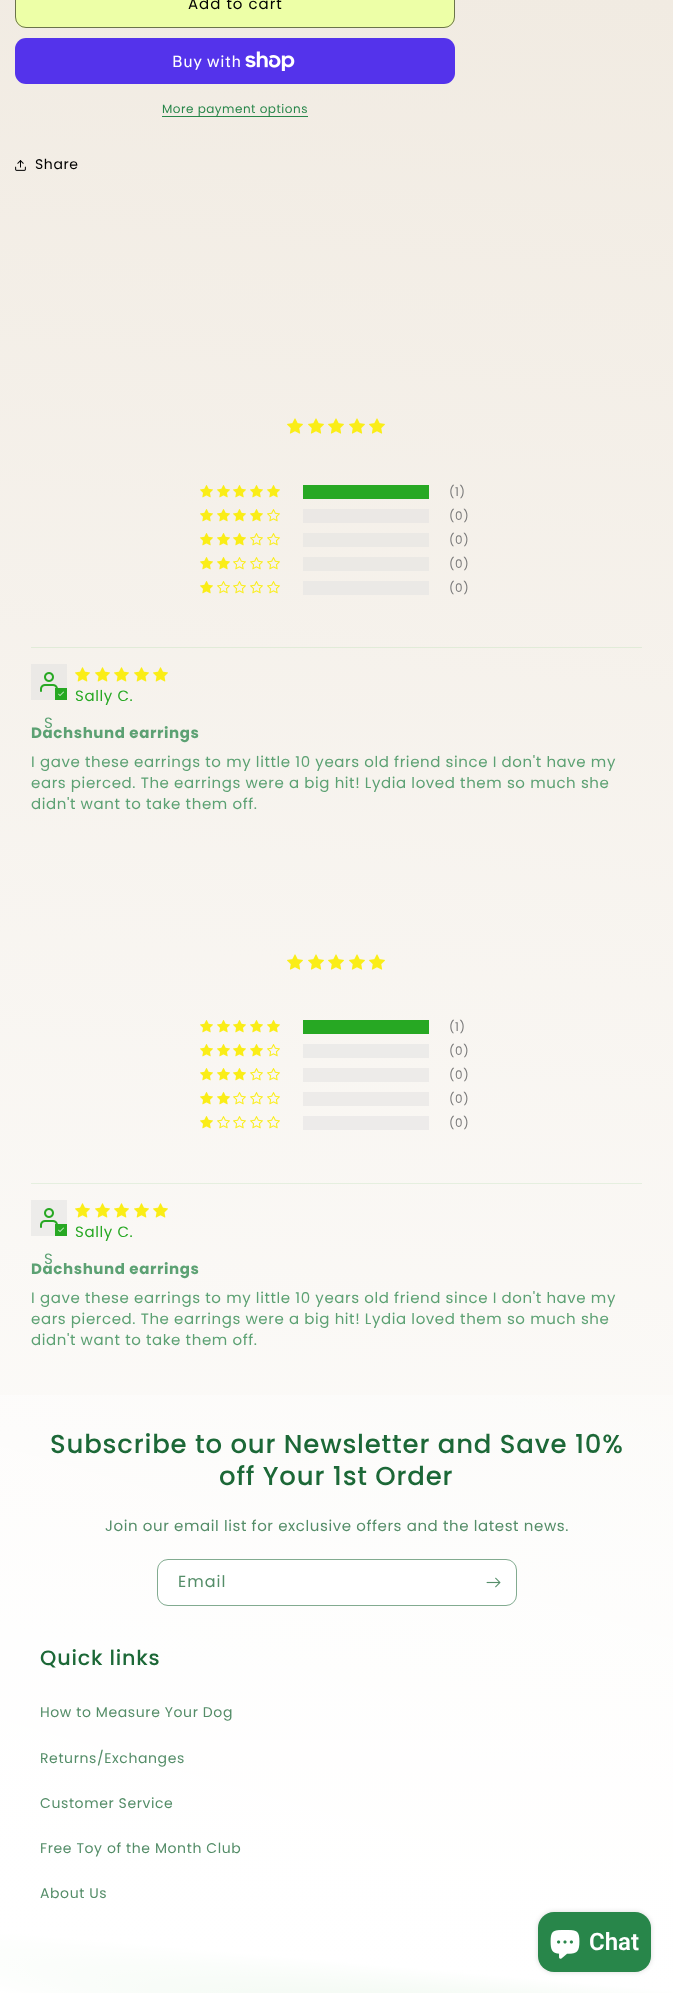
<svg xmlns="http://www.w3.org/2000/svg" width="673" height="1993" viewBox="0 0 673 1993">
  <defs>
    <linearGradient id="g1" gradientUnits="userSpaceOnUse" x1="247" y1="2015" x2="426" y2="-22"><stop offset="0" stop-color="#27a823"/><stop offset="0.03" stop-color="#ffffff"/><stop offset="1" stop-color="#f1ebe2"/></linearGradient>
    <linearGradient id="g2" gradientUnits="userSpaceOnUse" x1="626" y1="-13" x2="47" y2="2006"><stop offset="0.27" stop-color="#86d8d6"/><stop offset="0.5" stop-color="#86d8d6" stop-opacity="0"/><stop offset="0.5" stop-color="#ffffff" stop-opacity="0"/><stop offset="1" stop-color="#ffffff"/></linearGradient>
    <filter id="blur1" x="-50%" y="-200%" width="200%" height="500%"><feGaussianBlur stdDeviation="2.5"/></filter>
  </defs>
  <rect width="100%" height="100%" fill="#ffffff"/>
  <rect x="0" y="0" width="673" height="1993" fill="url(#g1)"/>
  <rect x="15" y="-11" width="440" height="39" rx="11" fill="#edffa7"/>
  <rect x="15.5" y="-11.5" width="439" height="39" rx="10.5" fill="none" stroke="#edffa7"/>
  <rect x="15.5" y="-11.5" width="439" height="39" rx="10.5" fill="none" stroke="#000000" stroke-opacity="0.55"/>
  <text x="188" y="9" font-family="Poppins" font-size="15" letter-spacing="1" fill="#000000">Add to cart</text>
  <rect x="15" y="38" width="440" height="46" rx="11" fill="#5433eb"/>
  <text x="172" y="67" font-family="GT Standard" font-size="16" letter-spacing="0.6" fill="#ffffff">Buy with</text>
  <image x="245" y="51" width="50" height="20" href="img1.png"/>
  <rect x="162" y="116" width="146" height="1" fill="#28864a"/>
  <text x="162" y="113" font-family="Poppins" font-size="12" letter-spacing="0.5" fill="#28864a">More payment options</text>
  <image x="15" y="160" width="11" height="11" href="img2.png"/>
  <text x="35" y="169" font-family="Poppins" font-size="14" letter-spacing="0.6" fill="#000000">Share</text>
  <image x="287" y="418" width="16" height="16" href="img3.png"/>
  <image x="308" y="418" width="16" height="16" href="img3.png"/>
  <image x="328" y="418" width="16" height="16" href="img4.png"/>
  <image x="349" y="418" width="16" height="16" href="img5.png"/>
  <image x="369" y="418" width="16" height="16" href="img6.png"/>
  <image x="200" y="485" width="13" height="13" href="img7.png"/>
  <image x="217" y="485" width="13" height="13" href="img7.png"/>
  <image x="233" y="485" width="13" height="13" href="img7.png"/>
  <image x="250" y="485" width="13" height="13" href="img7.png"/>
  <image x="267" y="485" width="13" height="13" href="img7.png"/>
  <rect x="303" y="485" width="126" height="14" fill="#27a823"/>
  <text x="449" y="496" font-family="Poppins" font-size="12" letter-spacing="0.6" fill="#7b7b7b">(1)</text>
  <image x="200" y="509" width="13" height="13" href="img8.png"/>
  <image x="217" y="509" width="13" height="13" href="img8.png"/>
  <image x="233" y="509" width="13" height="13" href="img9.png"/>
  <image x="250" y="509" width="13" height="13" href="img10.png"/>
  <image x="267" y="509" width="13" height="13" href="img11.png"/>
  <rect x="303" y="509" width="126" height="14" fill="#ebe8e5"/>
  <text x="449" y="520" font-family="Poppins" font-size="12" letter-spacing="0.6" fill="#7b7b7b">(0)</text>
  <image x="200" y="533" width="13" height="13" href="img12.png"/>
  <image x="217" y="533" width="13" height="13" href="img13.png"/>
  <image x="233" y="533" width="13" height="13" href="img14.png"/>
  <image x="250" y="533" width="13" height="13" href="img15.png"/>
  <image x="267" y="533" width="13" height="13" href="img15.png"/>
  <rect x="303" y="533" width="126" height="14" fill="#ebe9e5"/>
  <text x="449" y="544" font-family="Poppins" font-size="12" letter-spacing="0.6" fill="#7b7b7b">(0)</text>
  <image x="200" y="557" width="13" height="13" href="img16.png"/>
  <image x="217" y="557" width="13" height="13" href="img16.png"/>
  <image x="233" y="557" width="13" height="13" href="img17.png"/>
  <image x="250" y="557" width="13" height="13" href="img17.png"/>
  <image x="267" y="557" width="13" height="13" href="img17.png"/>
  <rect x="303" y="557" width="126" height="14" fill="#ebe9e5"/>
  <text x="449" y="568" font-family="Poppins" font-size="12" letter-spacing="0.6" fill="#7b7b7b">(0)</text>
  <image x="200" y="581" width="13" height="13" href="img16.png"/>
  <image x="217" y="581" width="13" height="13" href="img17.png"/>
  <image x="233" y="581" width="13" height="13" href="img17.png"/>
  <image x="250" y="581" width="13" height="13" href="img17.png"/>
  <image x="267" y="581" width="13" height="13" href="img17.png"/>
  <rect x="303" y="581" width="126" height="14" fill="#ebe9e6"/>
  <text x="449" y="592" font-family="Poppins" font-size="12" letter-spacing="0.6" fill="#7b7b7b">(0)</text>
  <rect x="31" y="647" width="611" height="1" fill="#e1ebd8"/>
  <image x="75" y="667" width="15" height="15" href="img18.png"/>
  <image x="95" y="667" width="15" height="15" href="img19.png"/>
  <image x="114" y="667" width="15" height="15" href="img20.png"/>
  <image x="134" y="667" width="15" height="15" href="img21.png"/>
  <image x="153" y="667" width="15" height="15" href="img22.png"/>
  <text x="75" y="701" font-family="Poppins" font-size="15" letter-spacing="0.6" fill="#27a823">Sally C.</text>
  <rect x="31" y="664" width="36" height="36" fill="#ebe9e6"/>
  <image x="40" y="672" width="18" height="20" href="img23.png"/>
  <rect x="55" y="688" width="12" height="12" fill="#27a823"/>
  <image x="58" y="691" width="6" height="5" href="img24.png"/>
  <text x="44" y="728" font-family="Poppins" font-size="15" letter-spacing="0.6" fill="#5ca173">S</text>
  <text x="31" y="738" font-family="Poppins" font-size="15" font-weight="bold" letter-spacing="0.6" fill="#5ca173">Dachshund earrings</text>
  <text x="31" y="767" font-family="Poppins" font-size="15" letter-spacing="0.6" fill="#5ca173">I gave these earrings to my little 10 years old friend since I don't have my</text>
  <text x="31" y="788" font-family="Poppins" font-size="15" letter-spacing="0.6" fill="#5ca173">ears pierced. The earrings were a big hit! Lydia loved them so much she</text>
  <text x="31" y="809" font-family="Poppins" font-size="15" letter-spacing="0.6" fill="#5ca173">didn't want to take them off.</text>
  <image x="287" y="954" width="16" height="16" href="img25.png"/>
  <image x="308" y="954" width="16" height="16" href="img26.png"/>
  <image x="328" y="954" width="16" height="16" href="img27.png"/>
  <image x="349" y="954" width="16" height="16" href="img28.png"/>
  <image x="369" y="954" width="16" height="16" href="img29.png"/>
  <image x="200" y="1020" width="13" height="13" href="img30.png"/>
  <image x="217" y="1020" width="13" height="13" href="img31.png"/>
  <image x="233" y="1020" width="13" height="13" href="img32.png"/>
  <image x="250" y="1020" width="13" height="13" href="img33.png"/>
  <image x="267" y="1020" width="13" height="13" href="img34.png"/>
  <rect x="303" y="1020" width="126" height="14" fill="#27a823"/>
  <text x="449" y="1031" font-family="Poppins" font-size="12" letter-spacing="0.6" fill="#7b7b7b">(1)</text>
  <image x="200" y="1044" width="13" height="13" href="img35.png"/>
  <image x="217" y="1044" width="13" height="13" href="img35.png"/>
  <image x="233" y="1044" width="13" height="13" href="img35.png"/>
  <image x="250" y="1044" width="13" height="13" href="img35.png"/>
  <image x="267" y="1044" width="13" height="13" href="img36.png"/>
  <rect x="303" y="1044" width="126" height="14" fill="#ecebe9"/>
  <text x="449" y="1055" font-family="Poppins" font-size="12" letter-spacing="0.6" fill="#7b7b7b">(0)</text>
  <image x="200" y="1068" width="13" height="13" href="img35.png"/>
  <image x="217" y="1068" width="13" height="13" href="img35.png"/>
  <image x="233" y="1068" width="13" height="13" href="img35.png"/>
  <image x="250" y="1068" width="13" height="13" href="img36.png"/>
  <image x="267" y="1068" width="13" height="13" href="img36.png"/>
  <rect x="303" y="1068" width="126" height="14" fill="#edebe9"/>
  <text x="449" y="1079" font-family="Poppins" font-size="12" letter-spacing="0.6" fill="#7b7b7b">(0)</text>
  <image x="200" y="1092" width="13" height="13" href="img37.png"/>
  <image x="217" y="1092" width="13" height="13" href="img38.png"/>
  <image x="233" y="1092" width="13" height="13" href="img39.png"/>
  <image x="250" y="1092" width="13" height="13" href="img40.png"/>
  <image x="267" y="1092" width="13" height="13" href="img41.png"/>
  <rect x="303" y="1092" width="126" height="14" fill="#edebe9"/>
  <text x="449" y="1103" font-family="Poppins" font-size="12" letter-spacing="0.6" fill="#7b7b7b">(0)</text>
  <image x="200" y="1116" width="13" height="13" href="img42.png"/>
  <image x="217" y="1116" width="13" height="13" href="img43.png"/>
  <image x="233" y="1116" width="13" height="13" href="img43.png"/>
  <image x="250" y="1116" width="13" height="13" href="img43.png"/>
  <image x="267" y="1116" width="13" height="13" href="img43.png"/>
  <rect x="303" y="1116" width="126" height="14" fill="#edebea"/>
  <text x="449" y="1127" font-family="Poppins" font-size="12" letter-spacing="0.6" fill="#7b7b7b">(0)</text>
  <rect x="31" y="1183" width="611" height="1" fill="#e5efdf"/>
  <image x="75" y="1203" width="15" height="15" href="img44.png"/>
  <image x="95" y="1203" width="15" height="15" href="img45.png"/>
  <image x="114" y="1203" width="15" height="15" href="img45.png"/>
  <image x="134" y="1203" width="15" height="15" href="img45.png"/>
  <image x="153" y="1203" width="15" height="15" href="img45.png"/>
  <text x="75" y="1237" font-family="Poppins" font-size="15" letter-spacing="0.6" fill="#27a823">Sally C.</text>
  <rect x="31" y="1200" width="36" height="36" fill="#edecea"/>
  <image x="40" y="1208" width="18" height="20" href="img46.png"/>
  <rect x="55" y="1224" width="12" height="12" fill="#27a823"/>
  <image x="58" y="1227" width="6" height="5" href="img24.png"/>
  <text x="44" y="1264" font-family="Poppins" font-size="15" letter-spacing="0.6" fill="#5ca173">S</text>
  <text x="31" y="1274" font-family="Poppins" font-size="15" font-weight="bold" letter-spacing="0.6" fill="#5ca173">Dachshund earrings</text>
  <text x="31" y="1303" font-family="Poppins" font-size="15" letter-spacing="0.6" fill="#5ca173">I gave these earrings to my little 10 years old friend since I don't have my</text>
  <text x="31" y="1324" font-family="Poppins" font-size="15" letter-spacing="0.6" fill="#5ca173">ears pierced. The earrings were a big hit! Lydia loved them so much she</text>
  <text x="31" y="1345" font-family="Poppins" font-size="15" letter-spacing="0.6" fill="#5ca173">didn't want to take them off.</text>
  <rect x="0" y="1395" width="673" height="217" fill="url(#g2)"/>
  <text x="50" y="1453" font-family="Poppins" font-size="26" font-weight="500" letter-spacing="0.8" fill="#1c6837">Subscribe to our Newsletter and Save 10%</text>
  <text x="219" y="1485" font-family="Poppins" font-size="26" font-weight="500" letter-spacing="0.8" fill="#1c6837">off Your 1st Order</text>
  <text x="105" y="1531" font-family="Poppins" font-size="15" letter-spacing="0.6" fill="#548d68">Join our email list for exclusive offers and the latest news.</text>
  <rect x="158" y="1560" width="358" height="45" rx="10" fill="#ffffff"/>
  <rect x="157.5" y="1559.5" width="359" height="46" rx="10.5" fill="none" stroke="#82ab90"/>
  <text x="178" y="1587" font-family="Poppins" font-size="16" letter-spacing="1" fill="#548d68">Email</text>
  <image x="486" y="1577" width="15" height="11" href="img47.png"/>
  <rect x="0" y="1612" width="673" height="381" fill="url(#g2)"/>
  <text x="40" y="1665" font-family="Poppins" font-size="20.75" font-weight="500" letter-spacing="0.8" fill="#1c6837">Quick links</text>
  <text x="40" y="1717" font-family="Poppins" font-size="14" letter-spacing="0.6" fill="#548d68">How to Measure Your Dog</text>
  <text x="40" y="1763" font-family="Poppins" font-size="14" letter-spacing="0.6" fill="#548d68">Returns/Exchanges</text>
  <text x="40" y="1808" font-family="Poppins" font-size="14" letter-spacing="0.6" fill="#548d68">Customer Service</text>
  <text x="40" y="1853" font-family="Poppins" font-size="14" letter-spacing="0.6" fill="#548d68">Free Toy of the Month Club</text>
  <text x="40" y="1898" font-family="Poppins" font-size="14" letter-spacing="0.6" fill="#548d68">About Us</text>
  <rect x="538" y="1912" width="113" height="60" rx="16" fill="#000000" fill-opacity="0.15" filter="url(#blur1)"/>
  <rect x="538" y="1912" width="113" height="60" rx="16" fill="#28864a"/>
  <image x="550" y="1930" width="30" height="29" href="img48.png"/>
  <text x="589" y="1950" font-family="Roboto" font-size="24" font-weight="600" fill="#ffffff">Chat</text>
</svg>
